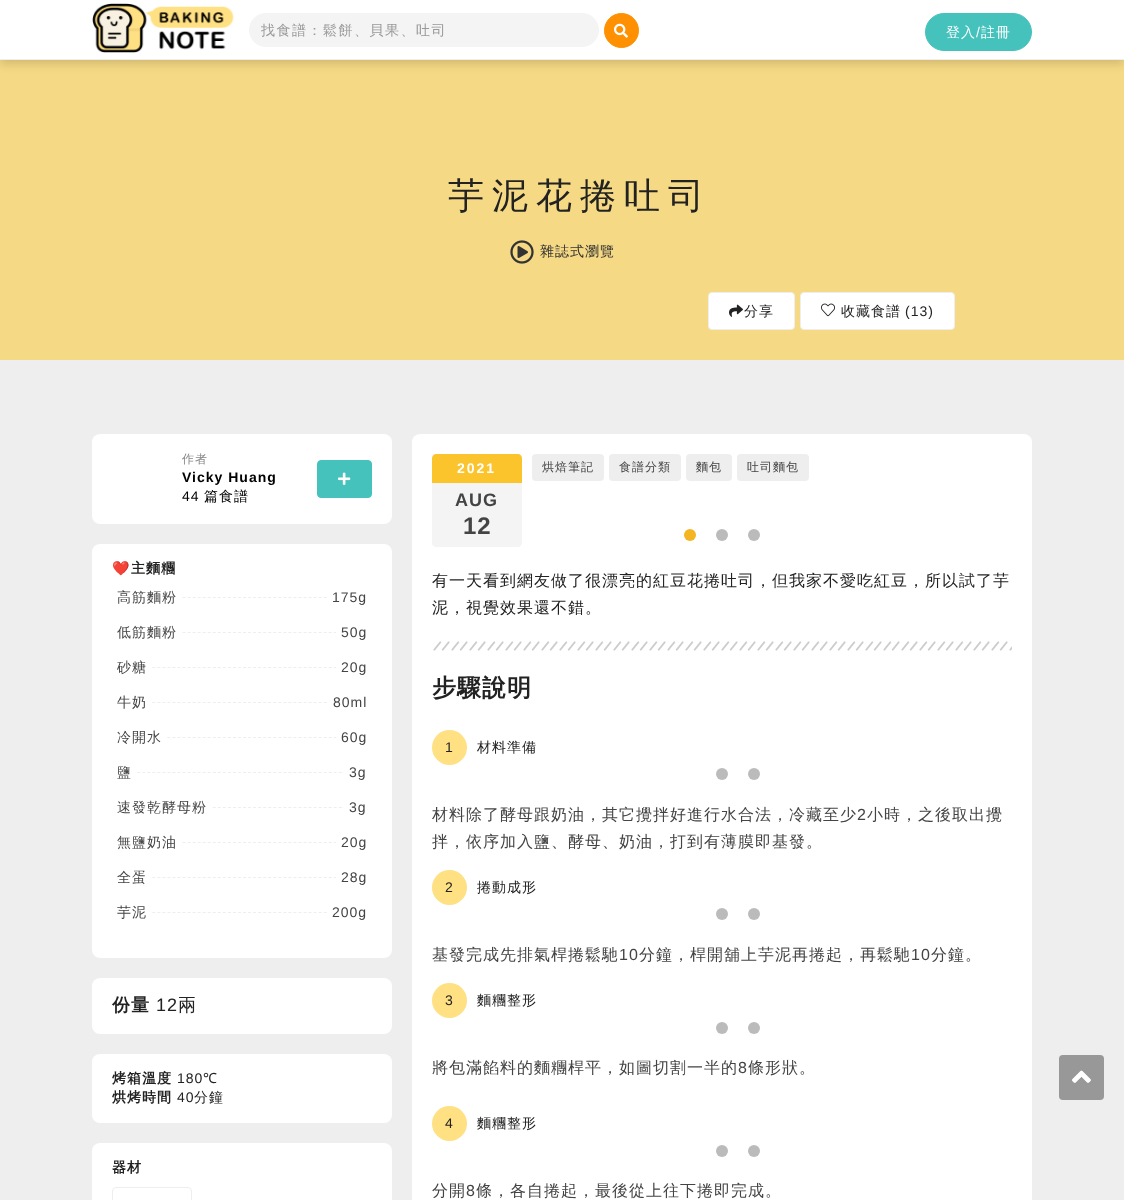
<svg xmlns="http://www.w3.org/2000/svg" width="1124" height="1200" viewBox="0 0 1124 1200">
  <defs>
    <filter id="blur1" x="-50%" y="-200%" width="200%" height="500%"><feGaussianBlur stdDeviation="5"/></filter>
  </defs>
  <rect width="100%" height="100%" fill="#eeeeee"/>
  <rect x="0" y="60" width="1124" height="300" fill="#f5d984"/>
  <rect x="0" y="4" width="1124" height="60" fill="#000000" fill-opacity="0.15" filter="url(#blur1)"/>
  <rect x="0" y="0" width="1124" height="59" fill="#ffffff"/>
  <rect x="0" y="59" width="1124" height="1" fill="#eeeeee"/>
  <image x="92" y="3" width="142" height="50" href="img1.png"/>
  <rect x="249" y="13" width="350" height="34" rx="17" fill="#f4f4f4"/>
  <text x="261" y="35" font-family="WenQuanYi Zen Hei" font-size="14" font-weight="500" letter-spacing="1.5" fill="#999999">找食譜：鬆餅、貝果、吐司</text>
  <circle cx="621.5" cy="30.5" r="17" fill="#fe9001" stroke="#fe9001"/>
  <image x="614" y="23" width="14" height="15" href="img2.png"/>
  <rect x="925.5" y="13.5" width="106" height="37" rx="18.5" fill="#46c2bc" stroke="#46c2bc"/>
  <text x="946" y="37" font-family="WenQuanYi Zen Hei" font-size="14" font-weight="500" letter-spacing="1" fill="#ffffff">登入</text>
  <text x="976" y="37" font-family="Liberation Sans" font-size="14" letter-spacing="1" fill="#ffffff">/</text>
  <text x="981" y="37" font-family="WenQuanYi Zen Hei" font-size="14" font-weight="500" letter-spacing="1" fill="#ffffff">註冊</text>
  <text x="448" y="208" font-family="WenQuanYi Zen Hei" font-size="36" font-weight="500" letter-spacing="8" fill="#222222">芋泥花捲吐司</text>
  <image x="510" y="240" width="24" height="24" href="img3.png"/>
  <text x="540" y="256" font-family="WenQuanYi Zen Hei" font-size="14" font-weight="500" letter-spacing="1" fill="#333333">雜誌式瀏覽</text>
  <rect x="708.5" y="292.5" width="86" height="37" rx="3.5" fill="#ffffff" stroke="#eeeeee"/>
  <image x="729" y="304" width="14" height="13" href="img4.png"/>
  <text x="744" y="316" font-family="WenQuanYi Zen Hei" font-size="14" font-weight="500" letter-spacing="1" fill="#222222">分享</text>
  <rect x="800.5" y="292.5" width="154" height="37" rx="3.5" fill="#ffffff" stroke="#eeeeee"/>
  <image x="821" y="303" width="14" height="14" href="img5.png"/>
  <text x="841" y="316" font-family="WenQuanYi Zen Hei" font-size="14" font-weight="500" letter-spacing="1" fill="#222222">收藏食譜</text>
  <text x="905" y="316" font-family="Liberation Sans" font-size="14" letter-spacing="1" fill="#222222">(13)</text>
  <rect x="92" y="434" width="300" height="90" rx="8" fill="#ffffff"/>
  <text x="182" y="463" font-family="WenQuanYi Zen Hei" font-size="12" font-weight="500" letter-spacing="1" fill="#888888">作者</text>
  <text x="182" y="482" font-family="Liberation Sans" font-size="14" font-weight="bold" letter-spacing="1" fill="#000000">Vicky Huang</text>
  <text x="182" y="501" font-family="Liberation Sans" font-size="14" letter-spacing="1" fill="#000000">44</text>
  <text x="204" y="501" font-family="WenQuanYi Zen Hei" font-size="14" font-weight="500" letter-spacing="1" fill="#000000">篇食譜</text>
  <rect x="317.5" y="460.5" width="54" height="37" rx="3.5" fill="#46c2bc" stroke="#46c2bc"/>
  <image x="338" y="472" width="13" height="13" href="img6.png"/>
  <rect x="92" y="544" width="300" height="414" rx="8" fill="#ffffff"/>
  <text x="112" y="573" font-family="Noto Color Emoji" font-size="14" font-weight="bold" letter-spacing="1" fill="#222222">❤️</text>
  <text x="131" y="573" font-family="WenQuanYi Zen Hei" font-size="14" font-weight="bold" letter-spacing="1" fill="#222222">主麵糰</text>
  <path d="M112 597.5H372" fill="none" stroke="#eeeeee" stroke-dasharray="3 2.04"/>
  <rect x="112" y="597" width="69" height="1" fill="#ffffff"/>
  <text x="117" y="602" font-family="WenQuanYi Zen Hei" font-size="14" font-weight="500" letter-spacing="1" fill="#444444">高筋麵粉</text>
  <rect x="328" y="597" width="44" height="1" fill="#ffffff"/>
  <text x="332" y="602" font-family="Liberation Sans" font-size="14" letter-spacing="1" fill="#444444">175g</text>
  <path d="M112 632.5H372" fill="none" stroke="#eeeeee" stroke-dasharray="3 2.04"/>
  <rect x="112" y="632" width="69" height="1" fill="#ffffff"/>
  <text x="117" y="637" font-family="WenQuanYi Zen Hei" font-size="14" font-weight="500" letter-spacing="1" fill="#444444">低筋麵粉</text>
  <rect x="336" y="632" width="36" height="1" fill="#ffffff"/>
  <text x="341" y="637" font-family="Liberation Sans" font-size="14" letter-spacing="1" fill="#444444">50g</text>
  <path d="M112 667.5H372" fill="none" stroke="#eeeeee" stroke-dasharray="3 2.04"/>
  <rect x="112" y="667" width="39" height="1" fill="#ffffff"/>
  <text x="117" y="672" font-family="WenQuanYi Zen Hei" font-size="14" font-weight="500" letter-spacing="1" fill="#444444">砂糖</text>
  <rect x="336" y="667" width="36" height="1" fill="#ffffff"/>
  <text x="341" y="672" font-family="Liberation Sans" font-size="14" letter-spacing="1" fill="#444444">20g</text>
  <path d="M112 702.5H372" fill="none" stroke="#eeeeee" stroke-dasharray="3 2.04"/>
  <rect x="112" y="702" width="39" height="1" fill="#ffffff"/>
  <text x="117" y="707" font-family="WenQuanYi Zen Hei" font-size="14" font-weight="500" letter-spacing="1" fill="#444444">牛奶</text>
  <rect x="328" y="702" width="44" height="1" fill="#ffffff"/>
  <text x="333" y="707" font-family="Liberation Sans" font-size="14" letter-spacing="1" fill="#444444">80ml</text>
  <path d="M112 737.5H372" fill="none" stroke="#eeeeee" stroke-dasharray="3 2.04"/>
  <rect x="112" y="737" width="54" height="1" fill="#ffffff"/>
  <text x="117" y="742" font-family="WenQuanYi Zen Hei" font-size="14" font-weight="500" letter-spacing="1" fill="#444444">冷開水</text>
  <rect x="336" y="737" width="36" height="1" fill="#ffffff"/>
  <text x="341" y="742" font-family="Liberation Sans" font-size="14" letter-spacing="1" fill="#444444">60g</text>
  <path d="M112 772.5H372" fill="none" stroke="#eeeeee" stroke-dasharray="3 2.04"/>
  <rect x="112" y="772" width="24" height="1" fill="#ffffff"/>
  <text x="117" y="777" font-family="WenQuanYi Zen Hei" font-size="14" font-weight="500" letter-spacing="1" fill="#444444">鹽</text>
  <rect x="344" y="772" width="28" height="1" fill="#ffffff"/>
  <text x="349" y="777" font-family="Liberation Sans" font-size="14" letter-spacing="1" fill="#444444">3g</text>
  <path d="M112 807.5H372" fill="none" stroke="#eeeeee" stroke-dasharray="3 2.04"/>
  <rect x="112" y="807" width="99" height="1" fill="#ffffff"/>
  <text x="117" y="812" font-family="WenQuanYi Zen Hei" font-size="14" font-weight="500" letter-spacing="1" fill="#444444">速發乾酵母粉</text>
  <rect x="344" y="807" width="28" height="1" fill="#ffffff"/>
  <text x="349" y="812" font-family="Liberation Sans" font-size="14" letter-spacing="1" fill="#444444">3g</text>
  <path d="M112 842.5H372" fill="none" stroke="#eeeeee" stroke-dasharray="3 2.04"/>
  <rect x="112" y="842" width="69" height="1" fill="#ffffff"/>
  <text x="117" y="847" font-family="WenQuanYi Zen Hei" font-size="14" font-weight="500" letter-spacing="1" fill="#444444">無鹽奶油</text>
  <rect x="336" y="842" width="36" height="1" fill="#ffffff"/>
  <text x="341" y="847" font-family="Liberation Sans" font-size="14" letter-spacing="1" fill="#444444">20g</text>
  <path d="M112 877.5H372" fill="none" stroke="#eeeeee" stroke-dasharray="3 2.04"/>
  <rect x="112" y="877" width="39" height="1" fill="#ffffff"/>
  <text x="117" y="882" font-family="WenQuanYi Zen Hei" font-size="14" font-weight="500" letter-spacing="1" fill="#444444">全蛋</text>
  <rect x="336" y="877" width="36" height="1" fill="#ffffff"/>
  <text x="341" y="882" font-family="Liberation Sans" font-size="14" letter-spacing="1" fill="#444444">28g</text>
  <path d="M112 912.5H372" fill="none" stroke="#eeeeee" stroke-dasharray="3 2.04"/>
  <rect x="112" y="912" width="39" height="1" fill="#ffffff"/>
  <text x="117" y="917" font-family="WenQuanYi Zen Hei" font-size="14" font-weight="500" letter-spacing="1" fill="#444444">芋泥</text>
  <rect x="328" y="912" width="44" height="1" fill="#ffffff"/>
  <text x="332" y="917" font-family="Liberation Sans" font-size="14" letter-spacing="1" fill="#444444">200g</text>
  <rect x="92" y="978" width="300" height="56" rx="8" fill="#ffffff"/>
  <text x="112" y="1011" font-family="WenQuanYi Zen Hei" font-size="18" font-weight="bold" letter-spacing="1" fill="#222222">份量</text>
  <text x="156" y="1011" font-family="Liberation Sans" font-size="18" letter-spacing="1" fill="#222222">12</text>
  <text x="178" y="1011" font-family="WenQuanYi Zen Hei" font-size="18" font-weight="500" letter-spacing="1" fill="#222222">兩</text>
  <rect x="92" y="1054" width="300" height="69" rx="8" fill="#ffffff"/>
  <text x="112" y="1083" font-family="WenQuanYi Zen Hei" font-size="14" font-weight="bold" letter-spacing="1" fill="#222222">烤箱溫度</text>
  <text x="177" y="1083" font-family="Liberation Sans" font-size="14" letter-spacing="1" fill="#222222">180</text>
  <text x="203" y="1083" font-family="Noto Sans" font-size="14" letter-spacing="1" fill="#222222">℃</text>
  <text x="112" y="1102" font-family="WenQuanYi Zen Hei" font-size="14" font-weight="bold" letter-spacing="1" fill="#222222">烘烤時間</text>
  <text x="177" y="1102" font-family="Liberation Sans" font-size="14" letter-spacing="1" fill="#222222">40</text>
  <text x="194" y="1102" font-family="WenQuanYi Zen Hei" font-size="14" font-weight="500" letter-spacing="1" fill="#222222">分鐘</text>
  <rect x="92" y="1143" width="300" height="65" rx="8" fill="#ffffff"/>
  <text x="112" y="1172" font-family="WenQuanYi Zen Hei" font-size="14" font-weight="bold" letter-spacing="1" fill="#222222">器材</text>
  <rect x="112.5" y="1187.5" width="79" height="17" rx="3.5" fill="none" stroke="#eeeeee"/>
  <rect x="412" y="434" width="620" height="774" rx="8" fill="#ffffff"/>
  <path d="M436 454H518C520 454 522 456 522 458V483H432V458C432 456 434 454 436 454Z" fill="#fbc32c"/>
  <text x="457" y="473" font-family="Liberation Sans" font-size="14" font-weight="bold" letter-spacing="2" fill="#ffffff">2021</text>
  <path d="M432 483H522V543C522 545 520 547 518 547H436C434 547 432 545 432 543Z" fill="#f4f4f4"/>
  <text x="455" y="506" font-family="Liberation Sans" font-size="18" font-weight="bold" letter-spacing="1" fill="#444444">AUG</text>
  <text x="463" y="534" font-family="Liberation Sans" font-size="24" font-weight="bold" letter-spacing="1" fill="#444444">12</text>
  <rect x="532" y="454" width="72" height="27" rx="4" fill="#eeeeee"/>
  <text x="542" y="471" font-family="WenQuanYi Zen Hei" font-size="12" font-weight="500" letter-spacing="1" fill="#444444">烘焙筆記</text>
  <rect x="609" y="454" width="72" height="27" rx="4" fill="#eeeeee"/>
  <text x="619" y="471" font-family="WenQuanYi Zen Hei" font-size="12" font-weight="500" letter-spacing="1" fill="#444444">食譜分類</text>
  <rect x="686" y="454" width="46" height="27" rx="4" fill="#eeeeee"/>
  <text x="696" y="471" font-family="WenQuanYi Zen Hei" font-size="12" font-weight="500" letter-spacing="1" fill="#444444">麵包</text>
  <rect x="737" y="454" width="72" height="27" rx="4" fill="#eeeeee"/>
  <text x="747" y="471" font-family="WenQuanYi Zen Hei" font-size="12" font-weight="500" letter-spacing="1" fill="#444444">吐司麵包</text>
  <circle cx="690" cy="535" r="6" fill="#f4b522"/>
  <circle cx="722" cy="535" r="6" fill="#bbbbbb"/>
  <circle cx="754" cy="535" r="6" fill="#bbbbbb"/>
  <text x="432" y="586" font-family="WenQuanYi Zen Hei" font-size="16" font-weight="500" letter-spacing="1" fill="#222222">有一天看到網友做了很漂亮的紅豆花捲吐司，但我家不愛吃紅豆，所以試了芋</text>
  <text x="432" y="613" font-family="WenQuanYi Zen Hei" font-size="16" font-weight="500" letter-spacing="1" fill="#222222">泥，視覺效果還不錯。</text>
  <image x="433" y="641" width="579" height="10" href="img7.png"/>
  <text x="432" y="696" font-family="WenQuanYi Zen Hei" font-size="24" font-weight="bold" letter-spacing="1" fill="#222222">步驟說明</text>
  <circle cx="449.5" cy="747.5" r="17.5" fill="#ffe082"/>
  <text x="445" y="752" font-family="Liberation Sans" font-size="14" letter-spacing="1" fill="#222222">1</text>
  <text x="477" y="752" font-family="WenQuanYi Zen Hei" font-size="14" font-weight="500" letter-spacing="1" fill="#222222">材料準備</text>
  <circle cx="722" cy="774" r="6" fill="#bbbbbb"/>
  <circle cx="754" cy="774" r="6" fill="#bbbbbb"/>
  <text x="432" y="820" font-family="WenQuanYi Zen Hei" font-size="16" font-weight="500" letter-spacing="1" fill="#444444">材料除了酵母跟奶油，其它攪拌好進行水合法，冷藏至少</text>
  <text x="857" y="820" font-family="Liberation Sans" font-size="16" letter-spacing="1" fill="#444444">2</text>
  <text x="867" y="820" font-family="WenQuanYi Zen Hei" font-size="16" font-weight="500" letter-spacing="1" fill="#444444">小時，之後取出攪</text>
  <text x="432" y="847" font-family="WenQuanYi Zen Hei" font-size="16" font-weight="500" letter-spacing="1" fill="#444444">拌，依序加入鹽、酵母、奶油，打到有薄膜即基發。</text>
  <circle cx="449.5" cy="887.5" r="17.5" fill="#ffe082"/>
  <text x="445" y="892" font-family="Liberation Sans" font-size="14" letter-spacing="1" fill="#222222">2</text>
  <text x="477" y="892" font-family="WenQuanYi Zen Hei" font-size="14" font-weight="500" letter-spacing="1" fill="#222222">捲動成形</text>
  <circle cx="722" cy="914" r="6" fill="#bbbbbb"/>
  <circle cx="754" cy="914" r="6" fill="#bbbbbb"/>
  <text x="432" y="960" font-family="WenQuanYi Zen Hei" font-size="16" font-weight="500" letter-spacing="1" fill="#444444">基發完成先排氣桿捲鬆馳</text>
  <text x="619" y="960" font-family="Liberation Sans" font-size="16" letter-spacing="1" fill="#444444">10</text>
  <text x="639" y="960" font-family="WenQuanYi Zen Hei" font-size="16" font-weight="500" letter-spacing="1" fill="#444444">分鐘，桿開舖上芋泥再捲起，再鬆馳</text>
  <text x="911" y="960" font-family="Liberation Sans" font-size="16" letter-spacing="1" fill="#444444">10</text>
  <text x="931" y="960" font-family="WenQuanYi Zen Hei" font-size="16" font-weight="500" letter-spacing="1" fill="#444444">分鐘。</text>
  <circle cx="449.5" cy="1000.5" r="17.5" fill="#ffe082"/>
  <text x="445" y="1005" font-family="Liberation Sans" font-size="14" letter-spacing="1" fill="#222222">3</text>
  <text x="477" y="1005" font-family="WenQuanYi Zen Hei" font-size="14" font-weight="500" letter-spacing="1" fill="#222222">麵糰整形</text>
  <circle cx="722" cy="1028" r="6" fill="#bbbbbb"/>
  <circle cx="754" cy="1028" r="6" fill="#bbbbbb"/>
  <text x="432" y="1073" font-family="WenQuanYi Zen Hei" font-size="16" font-weight="500" letter-spacing="1" fill="#444444">將包滿餡料的麵糰桿平，如圖切割一半的</text>
  <text x="738" y="1073" font-family="Liberation Sans" font-size="16" letter-spacing="1" fill="#444444">8</text>
  <text x="748" y="1073" font-family="WenQuanYi Zen Hei" font-size="16" font-weight="500" letter-spacing="1" fill="#444444">條形狀。</text>
  <circle cx="449.5" cy="1123.5" r="17.5" fill="#ffe082"/>
  <text x="445" y="1128" font-family="Liberation Sans" font-size="14" letter-spacing="1" fill="#222222">4</text>
  <text x="477" y="1128" font-family="WenQuanYi Zen Hei" font-size="14" font-weight="500" letter-spacing="1" fill="#222222">麵糰整形</text>
  <circle cx="722" cy="1151" r="6" fill="#bbbbbb"/>
  <circle cx="754" cy="1151" r="6" fill="#bbbbbb"/>
  <text x="432" y="1196" font-family="WenQuanYi Zen Hei" font-size="16" font-weight="500" letter-spacing="1" fill="#444444">分開</text>
  <text x="466" y="1196" font-family="Liberation Sans" font-size="16" letter-spacing="1" fill="#444444">8</text>
  <text x="476" y="1196" font-family="WenQuanYi Zen Hei" font-size="16" font-weight="500" letter-spacing="1" fill="#444444">條，各自捲起，最後從上往下捲即完成。</text>
  <rect x="1059" y="1055" width="45" height="45" rx="4" fill="#bebebe"/>
  <image x="1072" y="1070" width="19" height="13" href="img8.png"/>
  <rect x="1059" y="1055" width="45" height="45" rx="4" fill="#000000" fill-opacity="0.2"/>
  <image x="1072" y="1070" width="19" height="13" href="img9.png"/>
</svg>
